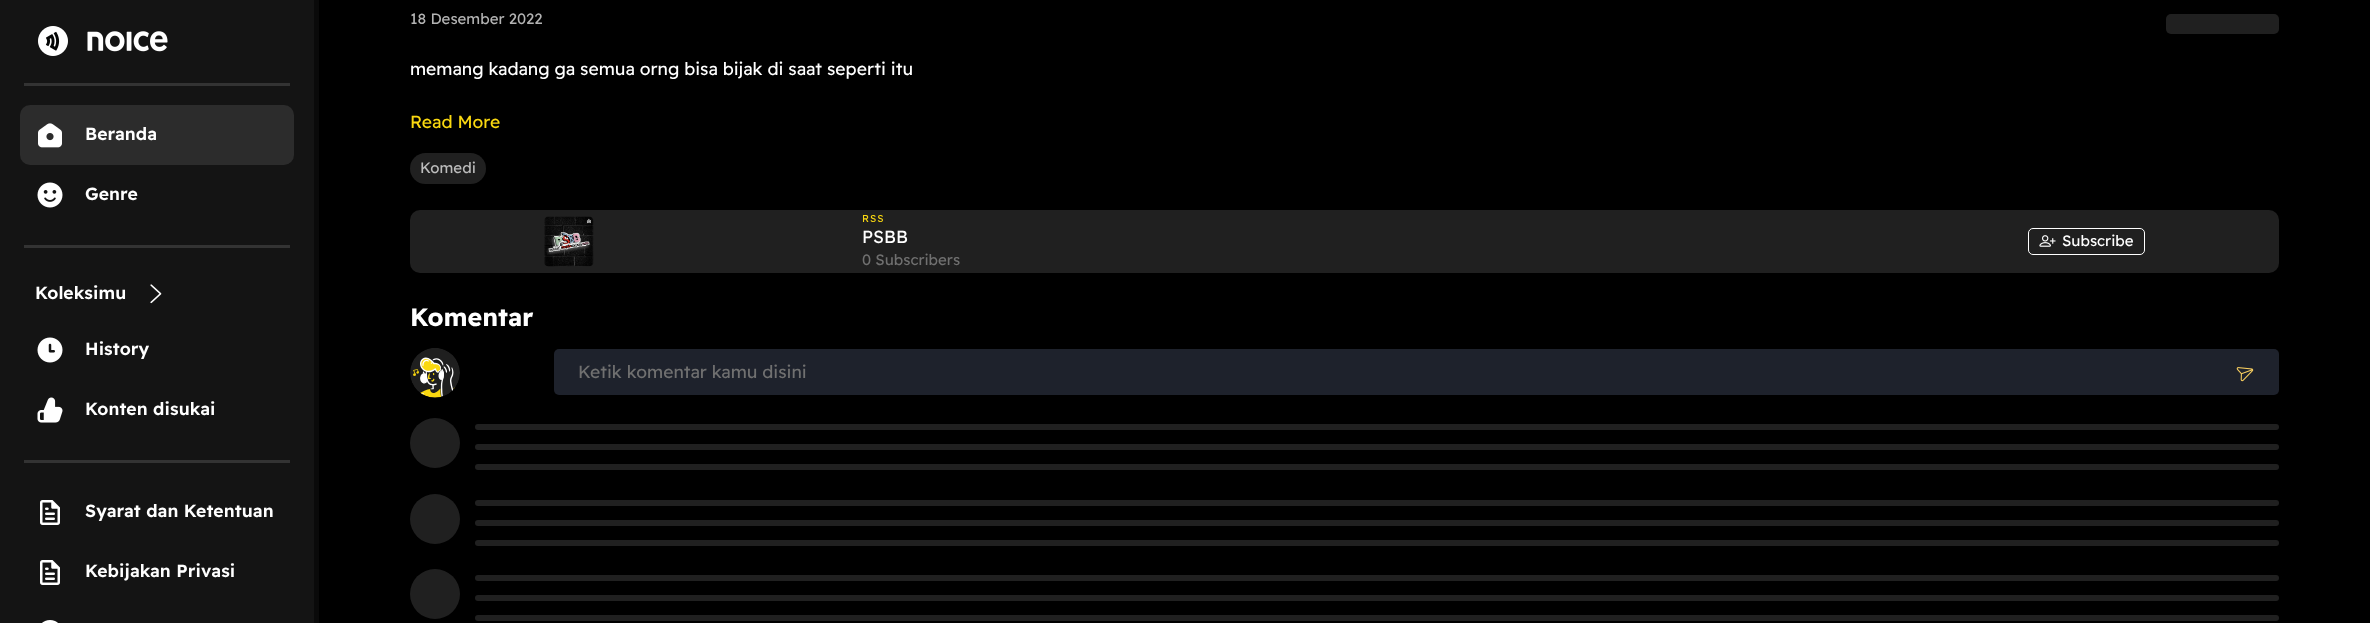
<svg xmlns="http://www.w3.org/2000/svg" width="2370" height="623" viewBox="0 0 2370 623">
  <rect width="100%" height="100%" fill="#141414"/>
  <rect x="314" y="0" width="5" height="623" fill="#0a0a0a"/>
  <image x="38" y="26" width="130" height="30" href="img1.png"/>
  <rect x="24" y="83" width="266" height="3" fill="#333333"/>
  <rect x="20" y="105" width="274" height="60" rx="10" fill="#2c2c2c"/>
  <image x="38" y="123" width="24" height="25" href="img2.png"/>
  <text x="85" y="140" font-family="Readex Pro" font-size="17.5" font-weight="600" letter-spacing="0.1" fill="#ffffff">Beranda</text>
  <image x="37" y="182" width="26" height="26" href="img3.png"/>
  <text x="85" y="200" font-family="Readex Pro" font-size="17.5" font-weight="600" letter-spacing="0.1" fill="#ffffff">Genre</text>
  <rect x="24" y="245" width="266" height="3" fill="#333333"/>
  <text x="35" y="299" font-family="Readex Pro" font-size="17.5" font-weight="600" letter-spacing="0.1" fill="#ffffff">Koleksimu</text>
  <image x="150" y="284" width="12" height="20" href="img4.png"/>
  <image x="37" y="337" width="26" height="26" href="img5.png"/>
  <text x="85" y="355" font-family="Readex Pro" font-size="17.5" font-weight="600" letter-spacing="0.1" fill="#ffffff">History</text>
  <image x="37" y="397" width="26" height="26" href="img6.png"/>
  <text x="85" y="415" font-family="Readex Pro" font-size="17.5" font-weight="600" letter-spacing="0.1" fill="#ffffff">Konten disukai</text>
  <rect x="24" y="460" width="266" height="3" fill="#333333"/>
  <image x="40" y="500" width="20" height="25" href="img7.png"/>
  <text x="85" y="517" font-family="Readex Pro" font-size="17.5" font-weight="600" letter-spacing="0.1" fill="#ffffff">Syarat dan Ketentuan</text>
  <image x="40" y="560" width="20" height="25" href="img7.png"/>
  <text x="85" y="577" font-family="Readex Pro" font-size="17.5" font-weight="600" letter-spacing="0.1" fill="#ffffff">Kebijakan Privasi</text>
  <image x="42" y="620" width="16" height="3" href="img8.png"/>
  <rect x="319" y="0" width="2051" height="623" fill="#000000"/>
  <text x="410" y="24" font-family="Readex Pro" font-size="15" fill="#b3b3b3">18 Desember 2022</text>
  <rect x="2166" y="14" width="113" height="20" rx="5" fill="#202020"/>
  <text x="410" y="75" font-family="Readex Pro" font-size="17.5" fill="#ffffff">memang kadang ga semua orng bisa bijak di saat seperti itu</text>
  <text x="410" y="128" font-family="Readex Pro" font-size="17.5" fill="#fad810">Read More</text>
  <rect x="410" y="153" width="76" height="31" rx="15.5" fill="#202020"/>
  <text x="420" y="173" font-family="Readex Pro" font-size="15" fill="#bcbcbc">Komedi</text>
  <rect x="410" y="210" width="1869" height="63" rx="10" fill="#202020"/>
  <image x="544" y="216" width="50" height="51" href="img9.png"/>
  <text x="862" y="222" font-family="Readex Pro" font-size="10" letter-spacing="1" fill="#fad810">RSS</text>
  <text x="862" y="243" font-family="Readex Pro" font-size="17.5" fill="#ffffff">PSBB</text>
  <text x="862" y="265" font-family="Readex Pro" font-size="15" fill="#707070">0 Subscribers</text>
  <rect x="2028.5" y="228.5" width="116" height="26" rx="4.5" fill="none" stroke="#ffffff"/>
  <image x="2039" y="235" width="17" height="12" href="img10.png"/>
  <text x="2062" y="246" font-family="Readex Pro" font-size="15" fill="#ffffff">Subscribe</text>
  <text x="410" y="326" font-family="Readex Pro" font-size="25" font-weight="bold" fill="#ffffff">Komentar</text>
  <image x="410" y="348" width="50" height="50" href="img11.png"/>
  <rect x="554" y="349" width="1725" height="46" rx="5" fill="#1e222c"/>
  <text x="578" y="378" font-family="Readex Pro" font-size="17.5" fill="#707070">Ketik komentar kamu disini</text>
  <image x="2236" y="367" width="18" height="15" href="img12.png"/>
  <circle cx="435" cy="443" r="25" fill="#202020"/>
  <rect x="475" y="424" width="1804" height="6" rx="3" fill="#202020"/>
  <rect x="475" y="444" width="1804" height="6" rx="3" fill="#202020"/>
  <rect x="475" y="464" width="1804" height="6" rx="3" fill="#202020"/>
  <circle cx="435" cy="519" r="25" fill="#202020"/>
  <rect x="475" y="500" width="1804" height="6" rx="3" fill="#202020"/>
  <rect x="475" y="520" width="1804" height="6" rx="3" fill="#202020"/>
  <rect x="475" y="540" width="1804" height="6" rx="3" fill="#202020"/>
  <circle cx="435" cy="594" r="25" fill="#202020"/>
  <rect x="475" y="575" width="1804" height="6" rx="3" fill="#202020"/>
  <rect x="475" y="595" width="1804" height="6" rx="3" fill="#202020"/>
  <rect x="475" y="615" width="1804" height="6" rx="3" fill="#202020"/>
</svg>
